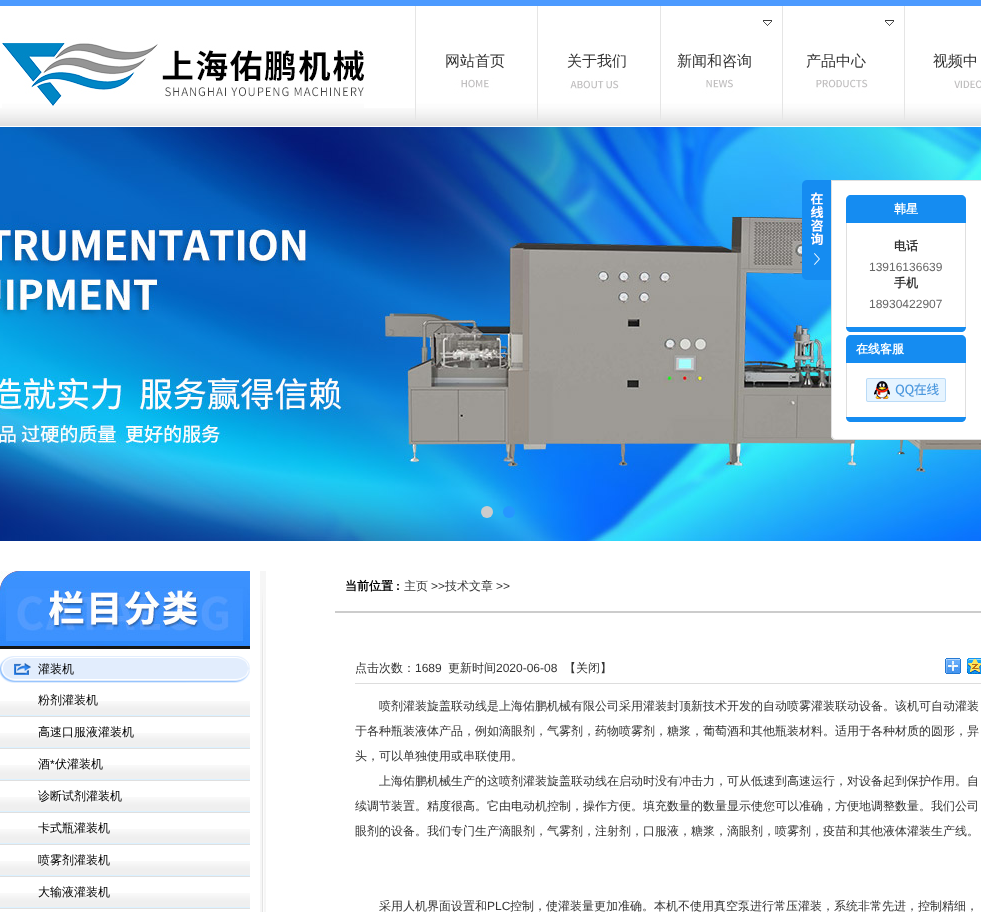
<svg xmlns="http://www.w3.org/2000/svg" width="981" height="912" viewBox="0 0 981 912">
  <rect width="100%" height="100%" fill="#ffffff"/>
  <image x="0" y="108" width="981" height="18" href="img1.png"/>
  <rect x="0" y="0" width="981" height="6" fill="#4c9aff"/>
  <image x="2" y="38" width="362" height="70" href="img2.png"/>
  <image x="415" y="6" width="566" height="114" href="img3.png"/>
  <text x="445" y="66" font-family="WenQuanYi Zen Hei" font-size="15" font-weight="500" fill="#333333">网站首页</text>
  <text x="567" y="66" font-family="WenQuanYi Zen Hei" font-size="15" font-weight="500" fill="#333333">关于我们</text>
  <image x="763" y="20" width="9" height="6" href="img4.png"/>
  <text x="677" y="66" font-family="WenQuanYi Zen Hei" font-size="15" font-weight="500" fill="#333333">新闻和咨询</text>
  <image x="885" y="20" width="9" height="6" href="img4.png"/>
  <text x="806" y="66" font-family="WenQuanYi Zen Hei" font-size="15" font-weight="500" fill="#333333">产品中心</text>
  <text x="933" y="66" font-family="WenQuanYi Zen Hei" font-size="15" font-weight="500" fill="#333333">视频中</text>
  <image x="0" y="127" width="981" height="414" href="img5.png"/>
  <circle cx="487" cy="512" r="6" fill="#cccccc"/>
  <circle cx="509" cy="512" r="6" fill="#2696ff"/>
  <image x="802" y="180" width="29" height="100" href="img6.png"/>
  <path d="M831 180H981V440H836C833 440 831 438 831 435Z" fill="#ffffff"/>
  <path d="M831 180H981V440H836C833 440 831 438 831 435ZM832 181H981V439H836C834 439 832 437 832 435Z" fill="#dfdfdf" fill-rule="evenodd"/>
  <path d="M851 195H961C964 195 966 197 966 200V223H846V200C846 197 848 195 851 195Z" fill="#158cf1"/>
  <text x="894" y="213" font-family="WenQuanYi Zen Hei" font-size="12" font-weight="bold" fill="#ffffff">韩星</text>
  <rect x="965" y="223" width="1" height="104" fill="#dfdfdf"/>
  <rect x="846" y="223" width="1" height="104" fill="#dfdfdf"/>
  <text x="894" y="250" font-family="WenQuanYi Zen Hei" font-size="12" font-weight="bold" fill="#333333">电话</text>
  <text x="869" y="271" font-family="Liberation Sans" font-size="12" fill="#666666">13916136639</text>
  <text x="894" y="287" font-family="WenQuanYi Zen Hei" font-size="12" font-weight="bold" fill="#333333">手机</text>
  <text x="869" y="308" font-family="Liberation Sans" font-size="12" fill="#666666">18930422907</text>
  <path d="M846 327H966C966 330 964 332 961 332H851C848 332 846 330 846 327Z" fill="#158cf1"/>
  <path d="M851 335H961C964 335 966 337 966 340V363H846V340C846 337 848 335 851 335Z" fill="#158cf1"/>
  <text x="856" y="353" font-family="WenQuanYi Zen Hei" font-size="12" font-weight="bold" fill="#ffffff">在线客服</text>
  <rect x="965" y="363" width="1" height="54" fill="#dfdfdf"/>
  <rect x="846" y="363" width="1" height="54" fill="#dfdfdf"/>
  <image x="866" y="378" width="80" height="24" href="img7.png"/>
  <path d="M846 417H966C966 420 964 422 961 422H851C848 422 846 420 846 417Z" fill="#158cf1"/>
  <image x="260" y="571" width="6" height="341" href="img8.png"/>
  <image x="0" y="571" width="250" height="78" href="img9.png"/>
  <image x="0" y="656" width="250" height="27" href="img10.png"/>
  <text x="38" y="673" font-family="WenQuanYi Zen Hei" font-size="12" font-weight="500" fill="#000000">灌装机</text>
  <image x="0" y="701" width="250" height="15" href="img11.png"/>
  <rect x="0" y="716" width="250" height="1" fill="#dfdfdf"/>
  <text x="38" y="704" font-family="WenQuanYi Zen Hei" font-size="12" font-weight="500" fill="#000000">粉剂灌装机</text>
  <image x="0" y="733" width="250" height="15" href="img11.png"/>
  <rect x="0" y="748" width="250" height="1" fill="#dfdfdf"/>
  <text x="38" y="736" font-family="WenQuanYi Zen Hei" font-size="12" font-weight="500" fill="#000000">高速口服液灌装机</text>
  <image x="0" y="765" width="250" height="15" href="img11.png"/>
  <rect x="0" y="780" width="250" height="1" fill="#dfdfdf"/>
  <text x="38" y="768" font-family="WenQuanYi Zen Hei" font-size="12" font-weight="500" fill="#000000">酒</text>
  <text x="50" y="768" font-family="Liberation Sans" font-size="12" fill="#000000">*</text>
  <text x="55" y="768" font-family="WenQuanYi Zen Hei" font-size="12" font-weight="500" fill="#000000">伏灌装机</text>
  <image x="0" y="797" width="250" height="15" href="img11.png"/>
  <rect x="0" y="812" width="250" height="1" fill="#dfdfdf"/>
  <text x="38" y="800" font-family="WenQuanYi Zen Hei" font-size="12" font-weight="500" fill="#000000">诊断试剂灌装机</text>
  <image x="0" y="829" width="250" height="15" href="img11.png"/>
  <rect x="0" y="844" width="250" height="1" fill="#dfdfdf"/>
  <text x="38" y="832" font-family="WenQuanYi Zen Hei" font-size="12" font-weight="500" fill="#000000">卡式瓶灌装机</text>
  <image x="0" y="861" width="250" height="15" href="img11.png"/>
  <rect x="0" y="876" width="250" height="1" fill="#dfdfdf"/>
  <text x="38" y="864" font-family="WenQuanYi Zen Hei" font-size="12" font-weight="500" fill="#000000">喷雾剂灌装机</text>
  <image x="0" y="893" width="250" height="15" href="img11.png"/>
  <rect x="0" y="908" width="250" height="1" fill="#dfdfdf"/>
  <text x="38" y="896" font-family="WenQuanYi Zen Hei" font-size="12" font-weight="500" fill="#000000">大输液灌装机</text>
  <rect x="335" y="611" width="646" height="2" fill="#cccccc"/>
  <text x="345" y="590" font-family="WenQuanYi Zen Hei" font-size="12" font-weight="bold" fill="#000000">当前位置</text>
  <text x="396" y="590" font-family="Liberation Sans" font-size="12" font-weight="bold" fill="#000000">:</text>
  <text x="404" y="590" font-family="WenQuanYi Zen Hei" font-size="12" font-weight="500" fill="#333333">主页</text>
  <text x="431" y="590" font-family="Liberation Sans" font-size="12" fill="#333333">&gt;&gt;</text>
  <text x="445" y="590" font-family="WenQuanYi Zen Hei" font-size="12" font-weight="500" fill="#333333">技术文章</text>
  <text x="496" y="590" font-family="Liberation Sans" font-size="12" fill="#333333">&gt;&gt;</text>
  <rect x="355" y="683" width="626" height="1" fill="#dddddd"/>
  <text x="355" y="672" font-family="WenQuanYi Zen Hei" font-size="12" font-weight="500" fill="#333333">点击次数：</text>
  <text x="415" y="672" font-family="Liberation Sans" font-size="12" fill="#333333">1689</text>
  <text x="448" y="672" font-family="WenQuanYi Zen Hei" font-size="12" font-weight="500" fill="#333333">更新时间</text>
  <text x="496" y="672" font-family="Liberation Sans" font-size="12" fill="#333333">2020-06-08</text>
  <text x="564" y="672" font-family="WenQuanYi Zen Hei" font-size="12" font-weight="500" fill="#333333">【关闭】</text>
  <image x="945" y="658" width="16" height="16" href="img12.png"/>
  <image x="967" y="658" width="14" height="16" href="img13.png"/>
  <text x="379" y="710" font-family="WenQuanYi Zen Hei" font-size="12" font-weight="500" fill="#333333">喷剂灌装旋盖联动线是上海佑鹏机械有限公司采用灌装封顶新技术开发的自动喷雾灌装联动设备。该机可自动灌装</text>
  <text x="355" y="735" font-family="WenQuanYi Zen Hei" font-size="12" font-weight="500" fill="#333333">于各种瓶装液体产品，例如滴眼剂，气雾剂，药物喷雾剂，糖浆，葡萄酒和其他瓶装材料。适用于各种材质的圆形，异</text>
  <text x="355" y="760" font-family="WenQuanYi Zen Hei" font-size="12" font-weight="500" fill="#333333">头，可以单独使用或串联使用。</text>
  <text x="379" y="785" font-family="WenQuanYi Zen Hei" font-size="12" font-weight="500" fill="#333333">上海佑鹏机械生产的这喷剂灌装旋盖联动线在启动时没有冲击力，可从低速到高速运行，对设备起到保护作用。自</text>
  <text x="355" y="810" font-family="WenQuanYi Zen Hei" font-size="12" font-weight="500" fill="#333333">续调节装置。精度很高。它由电动机控制，操作方便。填充数量的数量显示使您可以准确，方便地调整数量。我们公司</text>
  <text x="355" y="835" font-family="WenQuanYi Zen Hei" font-size="12" font-weight="500" fill="#333333">眼剂的设备。我们专门生产滴眼剂，气雾剂，注射剂，口服液，糖浆，滴眼剂，喷雾剂，疫苗和其他液体灌装生产线。</text>
  <text x="379" y="910" font-family="WenQuanYi Zen Hei" font-size="12" font-weight="500" fill="#333333">采用人机界面设置和</text>
  <text x="487" y="910" font-family="Liberation Sans" font-size="12" fill="#333333">PLC</text>
  <text x="510" y="910" font-family="WenQuanYi Zen Hei" font-size="12" font-weight="500" fill="#333333">控制，使灌装量更加准确。本机不使用真空泵进行常压灌装，系统非常先进，控制精细，</text>
</svg>
